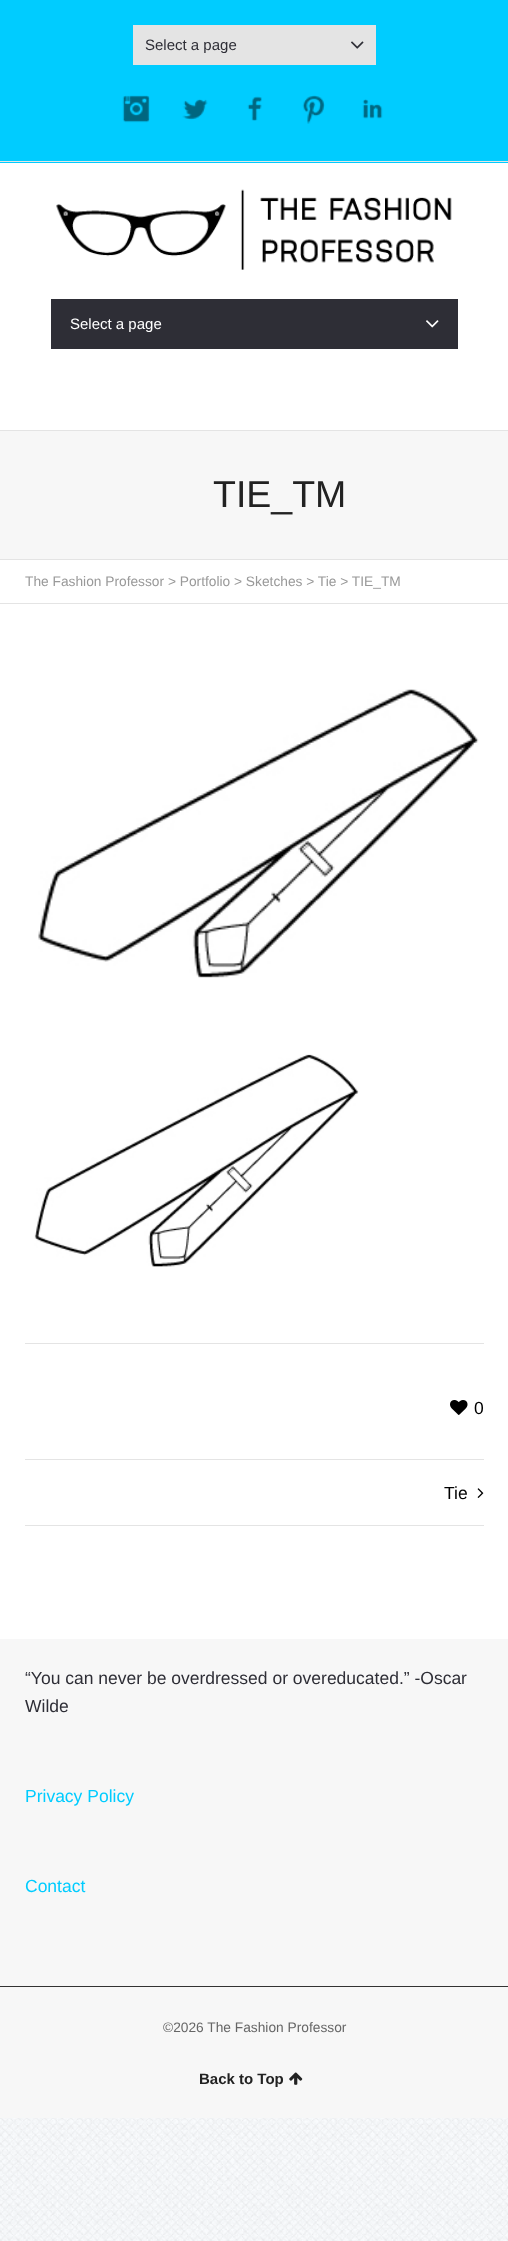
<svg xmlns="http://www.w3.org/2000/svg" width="508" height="2241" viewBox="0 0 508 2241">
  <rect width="100%" height="100%" fill="#ffffff"/>
  <image x="0" y="2118" width="508" height="123" href="img1.png"/>
  <rect x="0" y="0" width="508" height="163" fill="#00ccff"/>
  <rect x="0" y="161" width="508" height="1" fill="#e4e4e4"/>
  <rect x="133" y="25" width="243" height="40" fill="#e4e4e4"/>
  <text x="145" y="50" font-family="Liberation Sans" font-size="15" fill="#2e2e36">Select a page</text>
  <image x="351" y="41" width="13" height="8" href="img2.png"/>
  <image x="122" y="95" width="28" height="28" href="img3.png"/>
  <image x="182" y="99" width="26" height="21" href="img4.png"/>
  <image x="247" y="96" width="15" height="25" href="img5.png"/>
  <image x="302" y="95" width="23" height="29" href="img6.png"/>
  <image x="362" y="99" width="21" height="20" href="img7.png"/>
  <rect x="0" y="430" width="508" height="1" fill="#e4e4e4"/>
  <image x="56" y="189" width="396" height="81" href="img8.png"/>
  <rect x="51" y="299" width="407" height="50" fill="#2e2e36"/>
  <text x="70" y="329" font-family="Liberation Sans" font-size="15" fill="#ffffff">Select a page</text>
  <image x="426" y="320" width="13" height="8" href="img9.png"/>
  <rect x="0" y="431" width="508" height="128" fill="#f7f7f7"/>
  <rect x="0" y="559" width="508" height="1" fill="#e4e4e4"/>
  <text x="213" y="507" font-family="Liberation Sans" font-size="37.5" fill="#222222">TIE_TM</text>
  <rect x="0" y="603" width="508" height="1" fill="#e4e4e4"/>
  <text x="25" y="586" font-family="Liberation Sans" font-size="13.75" fill="#999999">The Fashion Professor &gt; Portfolio &gt; Sketches &gt; Tie &gt; TIE_TM</text>
  <image x="38" y="689" width="441" height="289" href="img10.png"/>
  <image x="34" y="1054" width="325" height="213" href="img11.png"/>
  <rect x="25" y="1343" width="459" height="1" fill="#e4e4e4"/>
  <image x="450" y="1400" width="18" height="15" href="img12.png"/>
  <text x="474" y="1414" font-family="Liberation Sans" font-size="17.5" fill="#000000">0</text>
  <rect x="25" y="1459" width="459" height="1" fill="#e4e4e4"/>
  <rect x="25" y="1525" width="459" height="1" fill="#e4e4e4"/>
  <text x="444" y="1499" font-family="Liberation Sans" font-size="17.5" fill="#000000">Tie</text>
  <image x="477" y="1488" width="7" height="10" href="img13.png"/>
  <rect x="0" y="1639" width="508" height="347" fill="#f7f7f7"/>
  <text x="25" y="1684" font-family="Liberation Sans" font-size="17.5" fill="#2e2e36">“You can never be overdressed or overeducated.” -Oscar</text>
  <text x="25" y="1712" font-family="Liberation Sans" font-size="17.5" fill="#2e2e36">Wilde</text>
  <text x="25" y="1802" font-family="Liberation Sans" font-size="17.5" fill="#00ccff">Privacy Policy</text>
  <text x="25" y="1892" font-family="Liberation Sans" font-size="17.5" fill="#00ccff">Contact</text>
  <rect x="0" y="1987" width="508" height="131" fill="#f7f7f7"/>
  <rect x="0" y="1986" width="508" height="1" fill="#333333"/>
  <text x="163" y="2032" font-family="Liberation Sans" font-size="13.75" fill="#666666">©2026 The Fashion Professor</text>
  <text x="199" y="2084" font-family="Liberation Sans" font-size="15" font-weight="bold" fill="#222222">Back to Top</text>
  <image x="289" y="2072" width="14" height="13" href="img14.png"/>
</svg>
